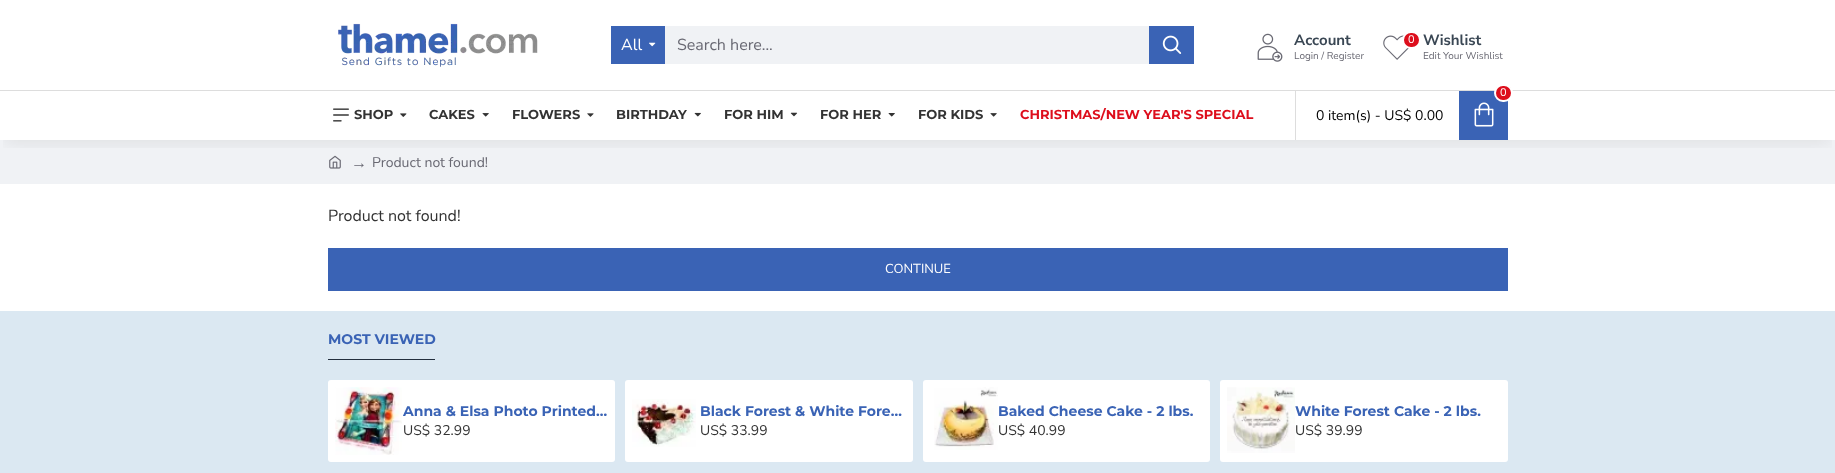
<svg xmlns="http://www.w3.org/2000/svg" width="1835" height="473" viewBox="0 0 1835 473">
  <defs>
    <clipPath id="clip1"><rect x="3" y="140" width="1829" height="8"/></clipPath>
    <filter id="blur1" x="-50%" y="-200%" width="200%" height="500%"><feGaussianBlur stdDeviation="10"/></filter>
  </defs>
  <rect width="100%" height="100%" fill="#ffffff"/>
  <rect x="0" y="140" width="1835" height="44" fill="#f0f2f5"/>
  <image x="329" y="155" width="12" height="14" href="img15.png"/>
  <g clip-path="url(#clip1)">
    <rect x="5" y="10" width="1825" height="130" fill="#000000" fill-opacity="0.1" filter="url(#blur1)"/>
  </g>
  <image x="338" y="23" width="200" height="44" href="img1.png"/>
  <rect x="611" y="26" width="54" height="38" fill="#3a63b5"/>
  <text x="621" y="50" font-family="Nunito Sans" font-size="16" fill="#ffffff">All</text>
  <image x="649" y="42" width="7" height="5" href="img2.png"/>
  <rect x="665" y="26" width="484" height="38" fill="#f0f2f5"/>
  <text x="677" y="50" font-family="Nunito Sans" font-size="16" fill="#696973">Search here...</text>
  <rect x="1149" y="26" width="45" height="38" fill="#3a63b5"/>
  <image x="1162" y="35" width="20" height="19" href="img3.png"/>
  <image x="1257" y="33" width="26" height="29" href="img4.png"/>
  <text x="1294" y="45" font-family="Nunito Sans" font-size="15" font-weight="bold" fill="#3a4754">Account</text>
  <text x="1294" y="59" font-family="Nunito Sans" font-size="10" fill="#696973">Login / Register</text>
  <image x="1383" y="35" width="26" height="25" href="img5.png"/>
  <rect x="1403" y="32" width="17" height="16" rx="8" fill="#dd0e1c" stroke="#ffffff" stroke-width="2"/>
  <text x="1408" y="43" font-family="Nunito Sans" font-size="11" fill="#ffffff">0</text>
  <text x="1423" y="45" font-family="Nunito Sans" font-size="15" font-weight="bold" fill="#3a4754">Wishlist</text>
  <text x="1423" y="59" font-family="Nunito Sans" font-size="10" fill="#696973">Edit Your Wishlist</text>
  <rect x="0" y="90" width="1835" height="1" fill="#dddddd"/>
  <rect x="1295" y="90" width="1" height="50" fill="#dddddd"/>
  <rect x="1459" y="91" width="49" height="49" fill="#3a63b5"/>
  <rect x="1495" y="85" width="17" height="16" rx="8" fill="#dd0e1c" stroke="#ffffff" stroke-width="2"/>
  <text x="1500" y="96" font-family="Nunito Sans" font-size="11" fill="#ffffff">0</text>
  <text x="1316" y="120" font-family="Nunito Sans" font-size="14" fill="#000000">0 item(s) - US$ 0.00</text>
  <image x="1474" y="102" width="20" height="25" href="img6.png"/>
  <image x="333" y="108" width="16" height="14" href="img7.png"/>
  <text x="354" y="119" font-family="Montserrat" font-size="13" font-weight="bold" fill="#333333">SHOP</text>
  <image x="400" y="113" width="7" height="4" href="img8.png"/>
  <text x="429" y="119" font-family="Montserrat" font-size="13" font-weight="bold" fill="#333333">CAKES</text>
  <image x="482" y="113" width="7" height="4" href="img9.png"/>
  <text x="512" y="119" font-family="Montserrat" font-size="13" font-weight="bold" fill="#333333">FLOWERS</text>
  <image x="587" y="113" width="7" height="4" href="img10.png"/>
  <text x="616" y="119" font-family="Montserrat" font-size="13" font-weight="bold" fill="#333333">BIRTHDAY</text>
  <image x="694" y="112" width="7" height="5" href="img11.png"/>
  <text x="724" y="119" font-family="Montserrat" font-size="13" font-weight="bold" fill="#333333">FOR HIM</text>
  <image x="790" y="112" width="8" height="5" href="img12.png"/>
  <text x="820" y="119" font-family="Montserrat" font-size="13" font-weight="bold" fill="#333333">FOR HER</text>
  <image x="888" y="113" width="7" height="4" href="img13.png"/>
  <text x="918" y="119" font-family="Montserrat" font-size="13" font-weight="bold" fill="#333333">FOR KIDS</text>
  <image x="990" y="113" width="7" height="4" href="img14.png"/>
  <text x="1020" y="119" font-family="Montserrat" font-size="13" font-weight="bold" fill="#dd0e1c">CHRISTMAS/NEW YEAR'S SPECIAL</text>
  <text x="351" y="168" font-family="Liberation Serif" font-size="16" fill="#696973">→</text>
  <text x="372" y="167" font-family="Nunito Sans" font-size="14" fill="#696973">Product not found!</text>
  <text x="328" y="221" font-family="Nunito Sans" font-size="16" fill="#333333">Product not found!</text>
  <rect x="328" y="248" width="1180" height="43" fill="#3a63b5"/>
  <text x="885" y="273" font-family="Nunito Sans" font-size="13" fill="#ffffff">CONTINUE</text>
  <rect x="0" y="311" width="1835" height="162" fill="#dbe8f2"/>
  <rect x="328" y="359" width="107" height="1" fill="#232f3e"/>
  <text x="328" y="344" font-family="Montserrat" font-size="14" font-weight="bold" fill="#3a63b5">MOST VIEWED</text>
  <rect x="328" y="380" width="287" height="82" rx="3" fill="#ffffff"/>
  <image x="335" y="387" width="67" height="68" href="img16.png"/>
  <text x="403" y="416" font-family="Montserrat" font-size="14" font-weight="bold" fill="#3a63b5">Anna &amp; Elsa Photo Printed…</text>
  <text x="403" y="435" font-family="Nunito Sans" font-size="14" fill="#333333">US$ 32.99</text>
  <rect x="625" y="380" width="288" height="82" rx="3" fill="#ffffff"/>
  <image x="632" y="399" width="64" height="48" href="img17.png"/>
  <text x="700" y="416" font-family="Montserrat" font-size="14" font-weight="bold" fill="#3a63b5">Black Forest &amp; White Fore…</text>
  <text x="700" y="435" font-family="Nunito Sans" font-size="14" fill="#333333">US$ 33.99</text>
  <rect x="923" y="380" width="287" height="82" rx="3" fill="#ffffff"/>
  <image x="934" y="387" width="64" height="63" href="img18.png"/>
  <text x="998" y="416" font-family="Montserrat" font-size="14" font-weight="bold" fill="#3a63b5">Baked Cheese Cake - 2 lbs.</text>
  <text x="998" y="435" font-family="Nunito Sans" font-size="14" fill="#333333">US$ 40.99</text>
  <rect x="1220" y="380" width="288" height="82" rx="3" fill="#ffffff"/>
  <image x="1227" y="387" width="68" height="66" href="img19.png"/>
  <text x="1295" y="416" font-family="Montserrat" font-size="14" font-weight="bold" fill="#3a63b5">White Forest Cake - 2 lbs.</text>
  <text x="1295" y="435" font-family="Nunito Sans" font-size="14" fill="#333333">US$ 39.99</text>
</svg>
